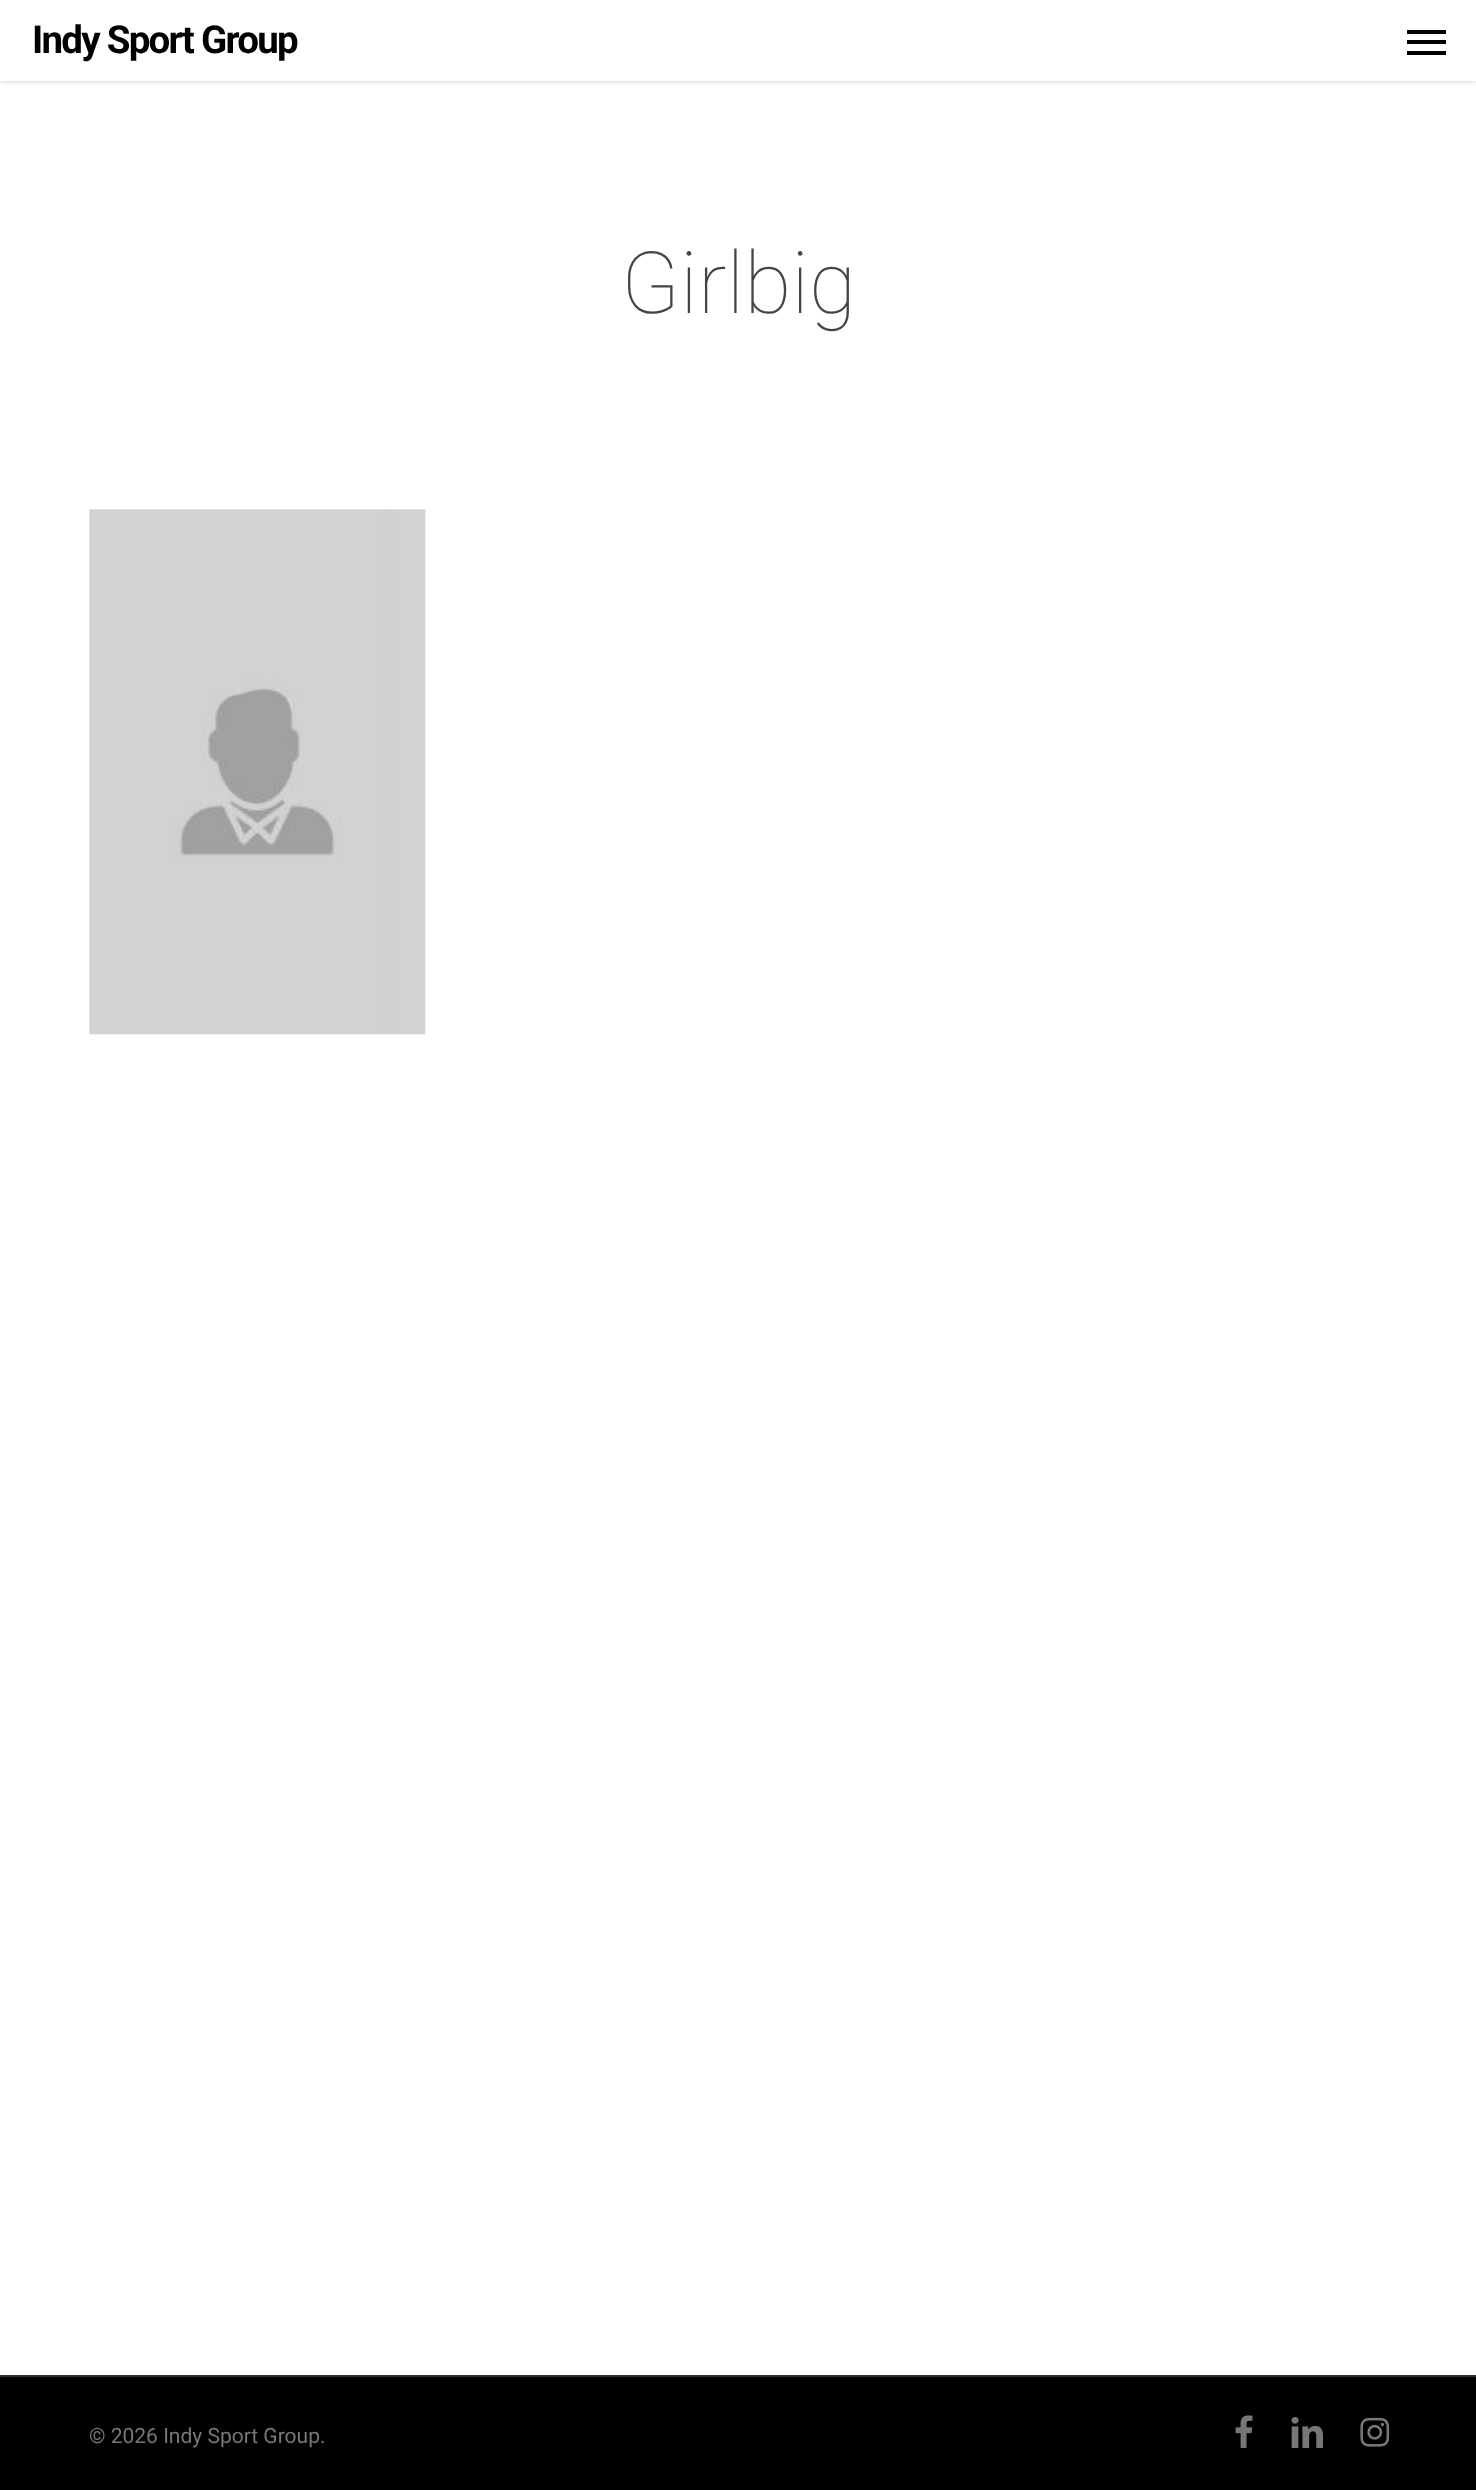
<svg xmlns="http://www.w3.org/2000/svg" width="1476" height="2490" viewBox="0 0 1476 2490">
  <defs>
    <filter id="blur1" x="-50%" y="-200%" width="200%" height="500%"><feGaussianBlur stdDeviation="2.5"/></filter>
  </defs>
  <rect width="100%" height="100%" fill="#ffffff"/>
  <rect x="0" y="0" width="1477" height="81" fill="#000000" fill-opacity="0.22" filter="url(#blur1)"/>
  <rect x="0" y="0" width="1476" height="81" fill="#ffffff"/>
  <text x="32" y="53" font-family="Roboto" font-size="38.5" font-weight="bold" letter-spacing="-1.75" fill="#000000">Indy Sport Group</text>
  <rect x="1407" y="30" width="39" height="4" fill="#000000"/>
  <rect x="1407" y="51" width="39" height="4" fill="#000000"/>
  <rect x="1407" y="40" width="39" height="4" fill="#000000"/>
  <text x="621" y="313" font-family="Roboto" font-size="86" font-weight="100" fill="#444444">Girlbig</text>
  <image x="89" y="509" width="337" height="526" href="img1.png"/>
  <rect x="0" y="2377" width="1476" height="113" fill="#000000"/>
  <rect x="0" y="2375" width="1476" height="2" fill="#2e2e2e"/>
  <text x="89" y="2443" font-family="Roboto" font-size="21" fill="#777777">© 2026 Indy Sport Group.</text>
  <image x="1235" y="2415" width="18" height="33" href="img2.png"/>
  <image x="1291" y="2417" width="32" height="32" href="img3.png"/>
  <image x="1360" y="2417" width="30" height="30" href="img4.png"/>
</svg>
